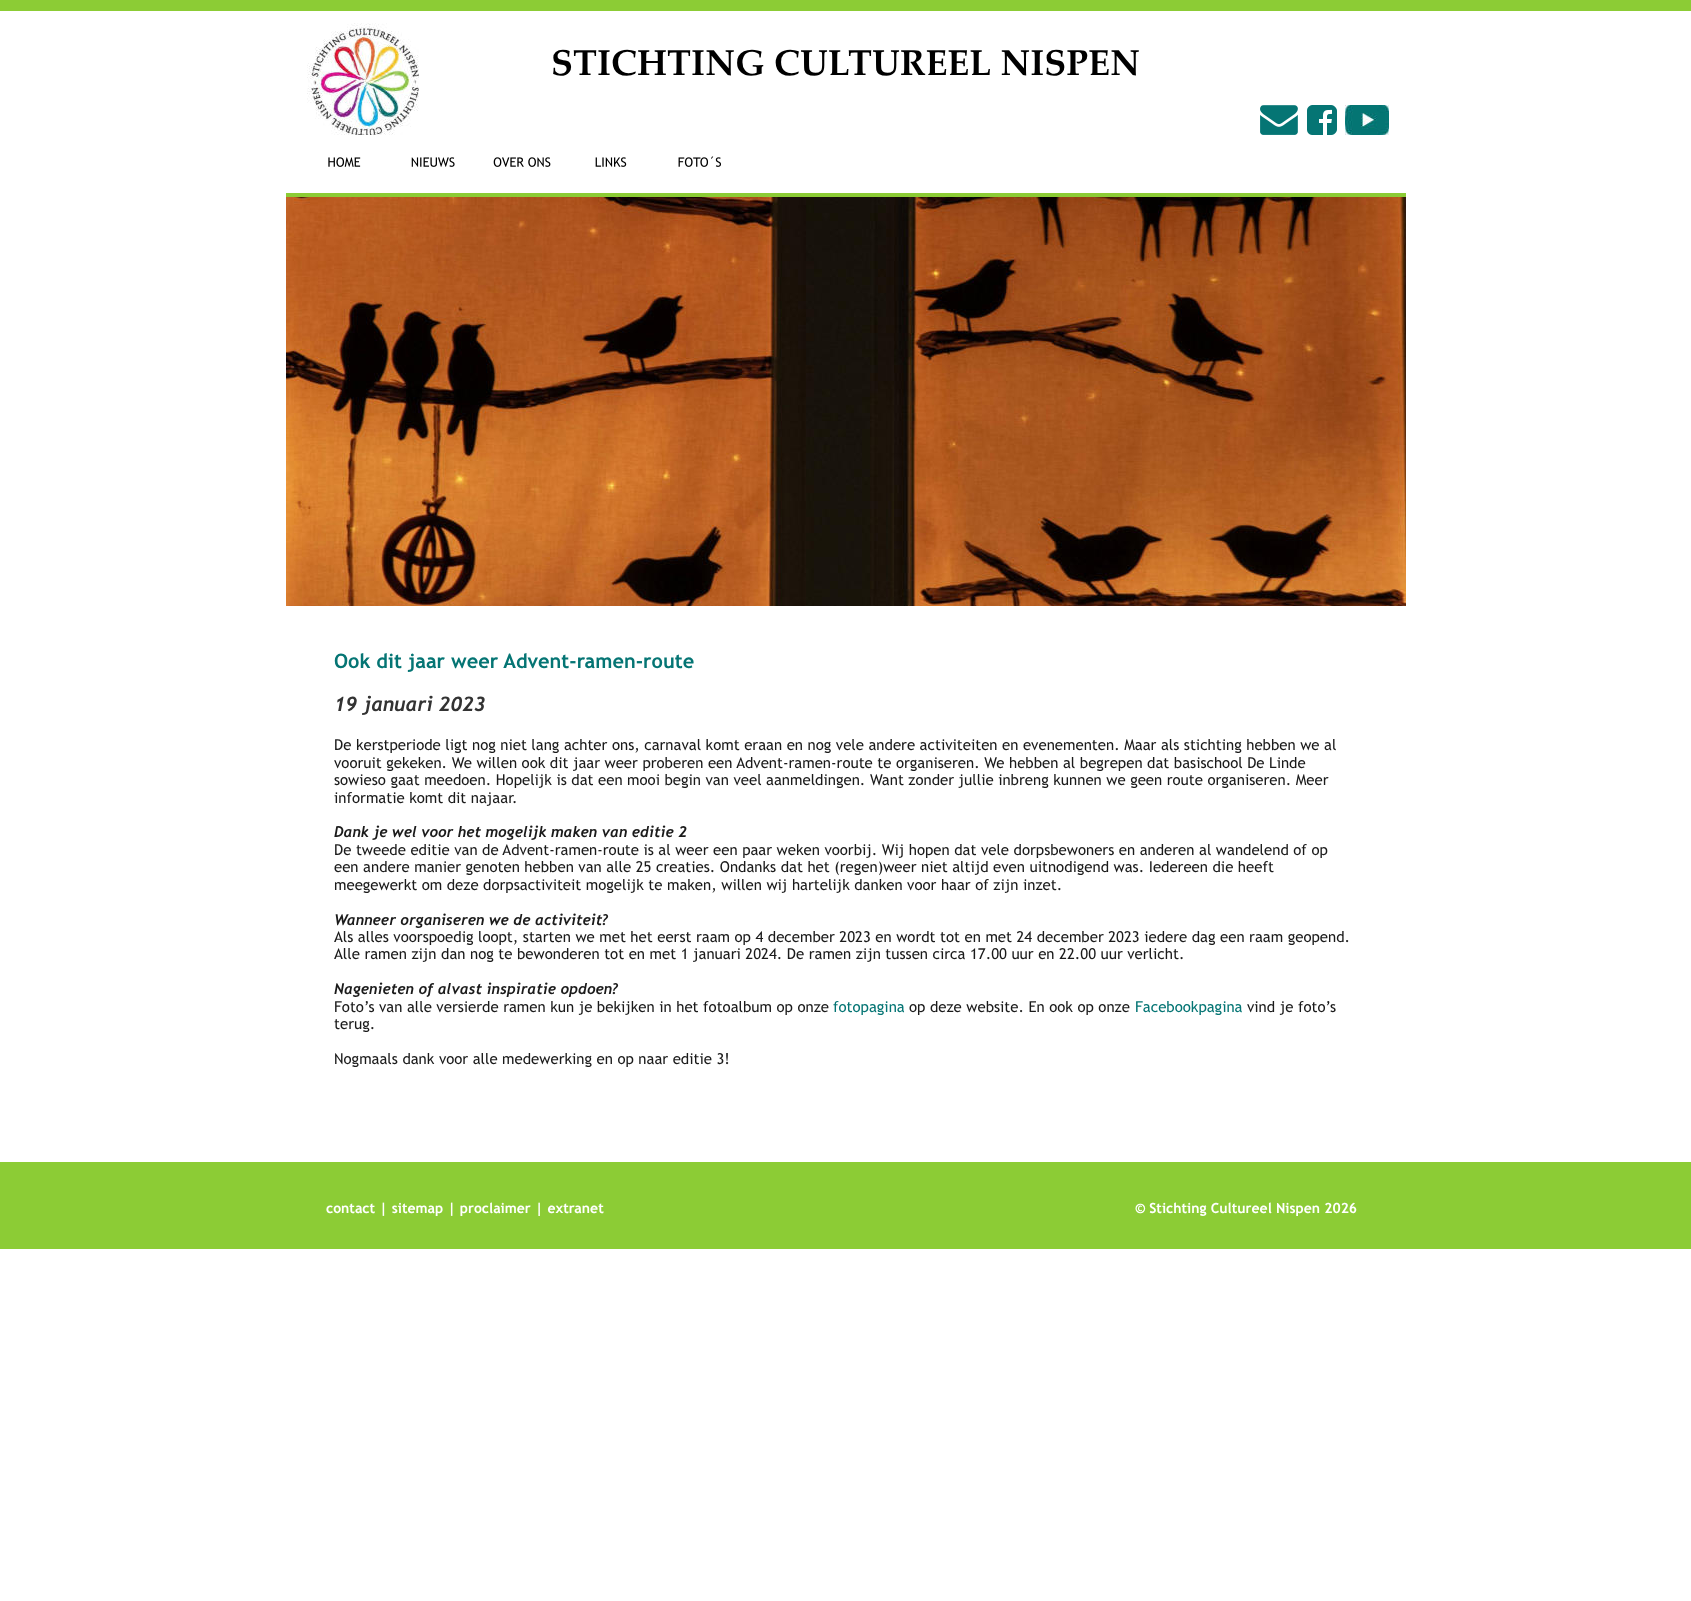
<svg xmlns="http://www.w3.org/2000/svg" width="1691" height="1601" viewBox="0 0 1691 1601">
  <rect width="100%" height="100%" fill="#ffffff"/>
  <rect x="0" y="0" width="1691" height="11" fill="#8ccc35"/>
  <image x="307" y="23" width="112" height="115" href="img1.png"/>
  <text x="551" y="75" font-family="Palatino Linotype" font-size="36" font-weight="bold" fill="#000000">STICHTING CULTUREEL NISPEN</text>
  <image x="1260" y="105" width="38" height="30" href="img2.png"/>
  <image x="1307" y="105" width="30" height="30" href="img3.png"/>
  <image x="1345" y="105" width="44" height="30" href="img4.png"/>
  <image x="328" y="135" width="45" height="32" href="img5.png"/>
  <image x="411" y="157" width="44" height="10" href="img6.png"/>
  <image x="493" y="157" width="58" height="10" href="img7.png"/>
  <image x="595" y="157" width="32" height="10" href="img8.png"/>
  <image x="678" y="156" width="43" height="11" href="img9.png"/>
  <rect x="286" y="193" width="1120" height="4" fill="#8ccc35"/>
  <image x="286" y="197" width="1120" height="409" href="img10.png"/>
  <text x="334" y="668" font-family="Trebuchet MS" font-size="20" font-weight="bold" fill="#057574">Ook dit jaar weer Advent-ramen-route</text>
  <text x="334" y="711" font-family="Trebuchet MS" font-size="20" font-weight="bold" font-style="italic" fill="#333333">19 januari 2023</text>
  <text x="334" y="750" font-family="Trebuchet MS" font-size="15" fill="#1b1b1b">De kerstperiode ligt nog niet lang achter ons, carnaval komt eraan en nog vele andere activiteiten en evenementen. Maar als stichting hebben we al</text>
  <text x="334" y="768" font-family="Trebuchet MS" font-size="15" fill="#1b1b1b">vooruit gekeken. We willen ook dit jaar weer proberen een Advent-ramen-route te organiseren. We hebben al begrepen dat basischool De Linde</text>
  <text x="334" y="785" font-family="Trebuchet MS" font-size="15" fill="#1b1b1b">sowieso gaat meedoen. Hopelijk is dat een mooi begin van veel aanmeldingen. Want zonder jullie inbreng kunnen we geen route organiseren. Meer</text>
  <text x="334" y="803" font-family="Trebuchet MS" font-size="15" fill="#1b1b1b">informatie komt dit najaar.</text>
  <text x="334" y="837" font-family="Trebuchet MS" font-size="15" font-weight="bold" font-style="italic" fill="#1b1b1b">Dank je wel voor het mogelijk maken van editie 2</text>
  <text x="334" y="855" font-family="Trebuchet MS" font-size="15" fill="#1b1b1b">De tweede editie van de Advent-ramen-route is al weer een paar weken voorbij. Wij hopen dat vele dorpsbewoners en anderen al wandelend of op</text>
  <text x="334" y="872" font-family="Trebuchet MS" font-size="15" fill="#1b1b1b">een andere manier genoten hebben van alle 25 creaties. Ondanks dat het (regen)weer niet altijd even uitnodigend was. Iedereen die heeft</text>
  <text x="334" y="890" font-family="Trebuchet MS" font-size="15" fill="#1b1b1b">meegewerkt om deze dorpsactiviteit mogelijk te maken, willen wij hartelijk danken voor haar of zijn inzet.</text>
  <text x="334" y="925" font-family="Trebuchet MS" font-size="15" font-weight="bold" font-style="italic" fill="#1b1b1b">Wanneer organiseren we de activiteit?</text>
  <text x="334" y="942" font-family="Trebuchet MS" font-size="15" fill="#1b1b1b">Als alles voorspoedig loopt, starten we met het eerst raam op 4 december 2023 en wordt tot en met 24 december 2023 iedere dag een raam geopend.</text>
  <text x="334" y="959" font-family="Trebuchet MS" font-size="15" fill="#1b1b1b">Alle ramen zijn dan nog te bewonderen tot en met 1 januari 2024. De ramen zijn tussen circa 17.00 uur en 22.00 uur verlicht.</text>
  <text x="334" y="994" font-family="Trebuchet MS" font-size="15" font-weight="bold" font-style="italic" fill="#1b1b1b">Nagenieten of alvast inspiratie opdoen?</text>
  <text x="334" y="1012" font-family="Trebuchet MS" font-size="15" fill="#1b1b1b">Foto’s van alle versierde ramen kun je bekijken in het fotoalbum op onze</text>
  <text x="833" y="1012" font-family="Trebuchet MS" font-size="15" fill="#057574">fotopagina</text>
  <text x="909" y="1012" font-family="Trebuchet MS" font-size="15" fill="#1b1b1b">op deze website. En ook op onze</text>
  <text x="1135" y="1012" font-family="Trebuchet MS" font-size="15" fill="#057574">Facebookpagina</text>
  <text x="1247" y="1012" font-family="Trebuchet MS" font-size="15" fill="#1b1b1b">vind je foto’s</text>
  <text x="334" y="1029" font-family="Trebuchet MS" font-size="15" fill="#1b1b1b">terug.</text>
  <text x="334" y="1064" font-family="Trebuchet MS" font-size="15" fill="#1b1b1b">Nogmaals dank voor alle medewerking en op naar editie 3!</text>
  <rect x="0" y="1162" width="1691" height="87" fill="#8ccc35"/>
  <text x="326" y="1213" font-family="Trebuchet MS" font-size="14" font-weight="bold" fill="#ffffff">contact | sitemap | proclaimer | extranet</text>
  <text x="1135" y="1213" font-family="Trebuchet MS" font-size="14" font-weight="bold" fill="#ffffff">© Stichting Cultureel Nispen 2026</text>
</svg>
